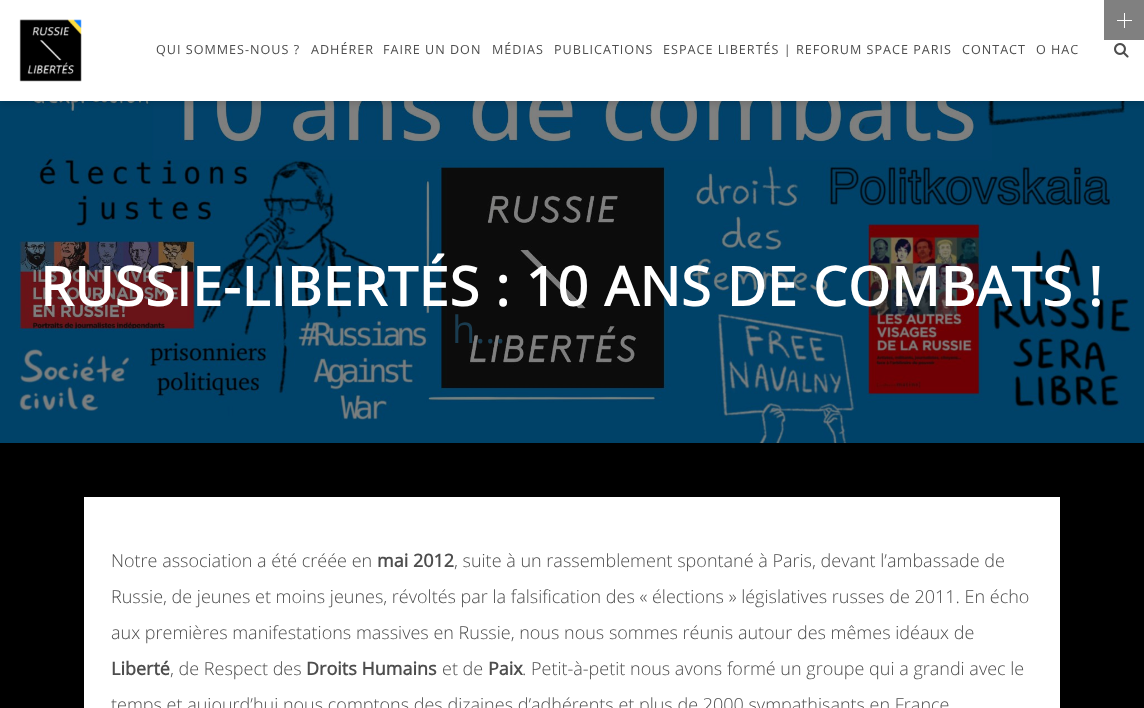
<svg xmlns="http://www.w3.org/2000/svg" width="1144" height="708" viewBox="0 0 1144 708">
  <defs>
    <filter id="blur1" x="-50%" y="-200%" width="200%" height="500%"><feGaussianBlur stdDeviation="3"/></filter>
  </defs>
  <rect width="100%" height="100%" fill="#000000"/>
  <image x="0" y="101" width="1144" height="342" href="img3.png"/>
  <rect x="0" y="3" width="1144" height="101" fill="#000000" fill-opacity="0.13" filter="url(#blur1)"/>
  <rect x="0" y="0" width="1144" height="101" fill="#ffffff"/>
  <rect x="1104" y="0" width="40" height="40" fill="#808080"/>
  <rect x="1117" y="20" width="15" height="1" fill="#ffffff"/>
  <rect x="1124" y="13" width="1" height="15" fill="#ffffff"/>
  <image x="19" y="19" width="63" height="63" href="img1.png"/>
  <text x="156" y="54" font-family="Open Sans" font-size="12.6" letter-spacing="1" fill="#4d4d4d">QUI SOMMES-NOUS ?</text>
  <text x="311" y="54" font-family="Open Sans" font-size="12.6" letter-spacing="1" fill="#4d4d4d">ADHÉRER</text>
  <text x="383" y="54" font-family="Open Sans" font-size="12.6" letter-spacing="1" fill="#4d4d4d">FAIRE UN DON</text>
  <text x="492" y="54" font-family="Open Sans" font-size="12.6" letter-spacing="1" fill="#4d4d4d">MÉDIAS</text>
  <text x="554" y="54" font-family="Open Sans" font-size="12.6" letter-spacing="1" fill="#4d4d4d">PUBLICATIONS</text>
  <text x="663" y="54" font-family="Open Sans" font-size="12.6" letter-spacing="1" fill="#4d4d4d">ESPACE LIBERTÉS | REFORUM SPACE PARIS</text>
  <text x="962" y="54" font-family="Open Sans" font-size="12.6" letter-spacing="1" fill="#4d4d4d">CONTACT</text>
  <text x="1036" y="54" font-family="Open Sans" font-size="12.6" letter-spacing="1" fill="#4d4d4d">О НАС</text>
  <image x="1114" y="43" width="15" height="15" href="img2.png"/>
  <text x="40" y="306" font-family="Open Sans" font-size="54" font-weight="bold" letter-spacing="1" fill="#ffffff">RUSSIE-LIBERTÉS : 10 ANS DE COMBATS !</text>
  <rect x="84" y="497" width="976" height="211" fill="#ffffff"/>
  <text x="111" y="567" font-family="Open Sans" font-size="18" font-weight="300" fill="#4d4d4d">Notre association a été créée en</text>
  <text x="377" y="567" font-family="Open Sans" font-size="18" font-weight="bold" fill="#4d4d4d">mai 2012</text>
  <text x="454" y="567" font-family="Open Sans" font-size="18" font-weight="300" fill="#4d4d4d">, suite à un rassemblement spontané à Paris, devant l’ambassade de</text>
  <text x="111" y="603" font-family="Open Sans" font-size="18" font-weight="300" fill="#4d4d4d">Russie, de jeunes et moins jeunes, révoltés par la falsification des « élections » législatives russes de 2011. En écho</text>
  <text x="111" y="639" font-family="Open Sans" font-size="18" font-weight="300" fill="#4d4d4d">aux premières manifestations massives en Russie, nous nous sommes réunis autour des mêmes idéaux de</text>
  <text x="111" y="675" font-family="Open Sans" font-size="18" font-weight="bold" fill="#4d4d4d">Liberté</text>
  <text x="170" y="675" font-family="Open Sans" font-size="18" font-weight="300" fill="#4d4d4d">, de Respect des</text>
  <text x="306" y="675" font-family="Open Sans" font-size="18" font-weight="bold" fill="#4d4d4d">Droits Humains</text>
  <text x="442" y="675" font-family="Open Sans" font-size="18" font-weight="300" fill="#4d4d4d">et de</text>
  <text x="488" y="675" font-family="Open Sans" font-size="18" font-weight="bold" fill="#4d4d4d">Paix</text>
  <text x="522" y="675" font-family="Open Sans" font-size="18" font-weight="300" fill="#4d4d4d">. Petit-à-petit nous avons formé un groupe qui a grandi avec le</text>
  <text x="111" y="711" font-family="Open Sans" font-size="18" font-weight="300" fill="#4d4d4d">temps et aujourd’hui nous comptons des dizaines d’adhérents et plus de 2000 sympathisants en France</text>
  <text x="452" y="343" font-family="Open Sans" font-size="38" fill="#1a3c50">h...</text>
</svg>
